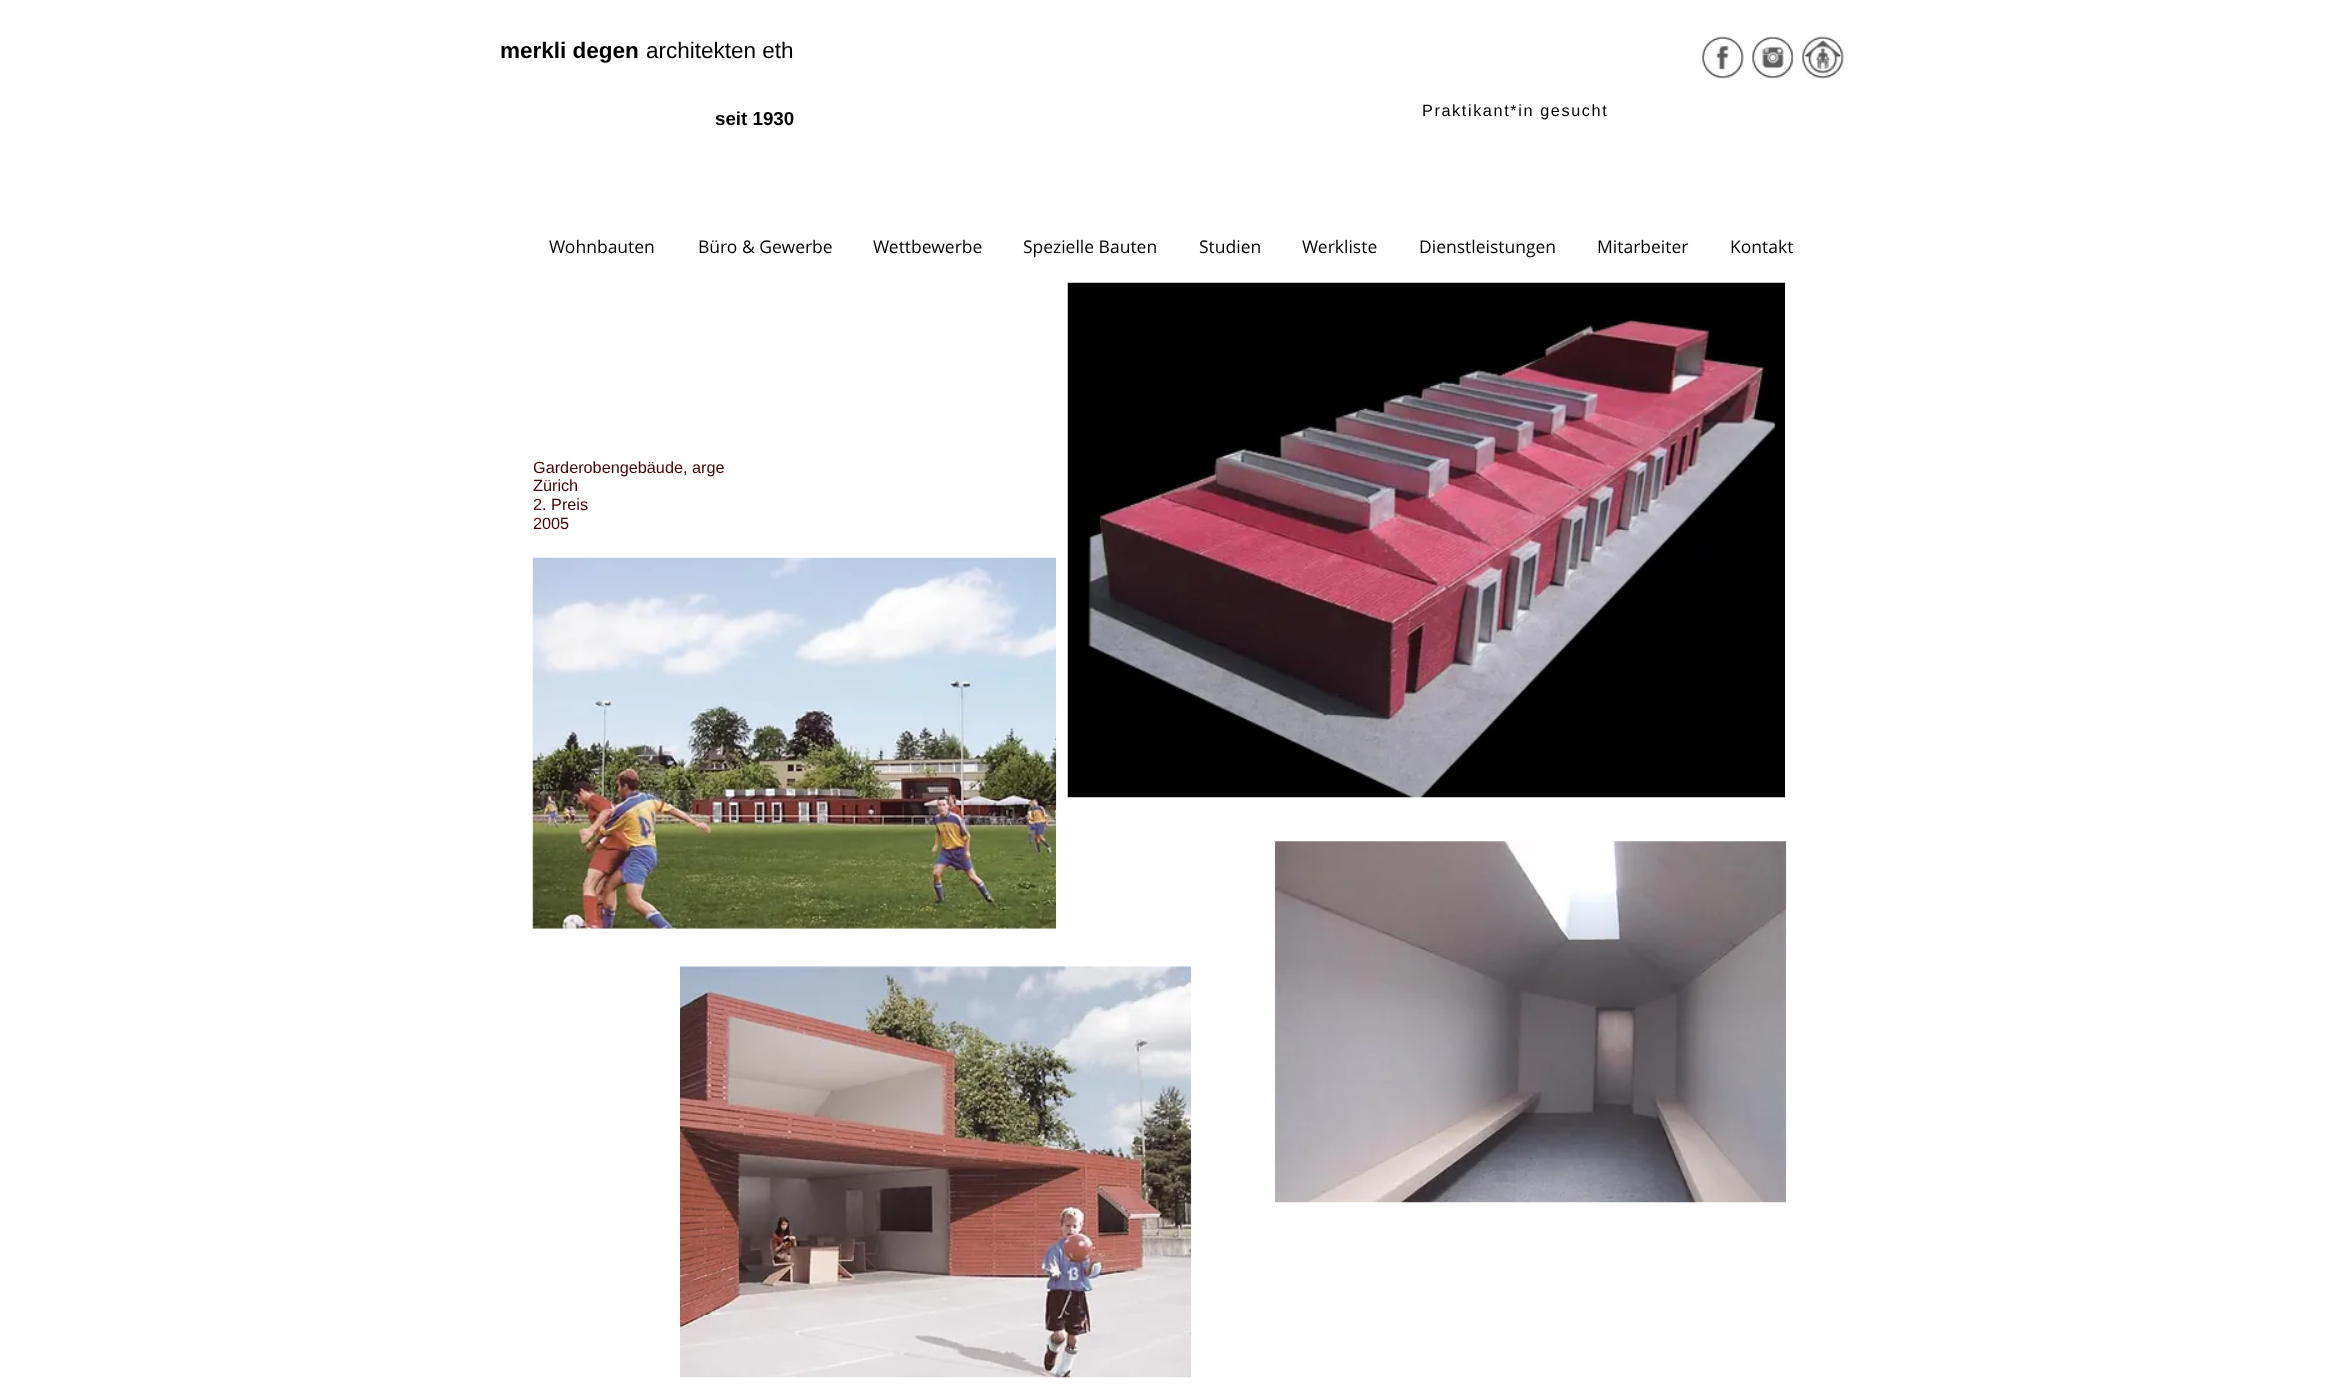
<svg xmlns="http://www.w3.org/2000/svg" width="2344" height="1399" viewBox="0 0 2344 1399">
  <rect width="100%" height="100%" fill="#ffffff"/>
  <text x="500" y="58" font-family="Liberation Sans" font-size="22.5" font-weight="bold" fill="#000000">merkli degen</text>
  <text x="646" y="58" font-family="Liberation Sans" font-size="22.5" fill="#000000">architekten eth</text>
  <image x="1701" y="36" width="43" height="43" href="img1.png"/>
  <image x="1752" y="36" width="42" height="43" href="img2.png"/>
  <image x="1801" y="36" width="43" height="43" href="img3.png"/>
  <text x="715" y="125" font-family="Liberation Sans" font-size="18.75" font-weight="bold" fill="#000000">seit 1930</text>
  <text x="1422" y="116" font-family="Liberation Sans" font-size="16.25" letter-spacing="1.6" fill="#000000">Praktikant*in gesucht</text>
  <text x="549" y="253" font-family="Open Sans" font-size="17.5" fill="#000000">Wohnbauten</text>
  <text x="698" y="253" font-family="Open Sans" font-size="17.5" fill="#000000">Büro &amp; Gewerbe</text>
  <text x="873" y="253" font-family="Open Sans" font-size="17.5" fill="#000000">Wettbewerbe</text>
  <text x="1023" y="253" font-family="Open Sans" font-size="17.5" fill="#000000">Spezielle Bauten</text>
  <text x="1199" y="253" font-family="Open Sans" font-size="17.5" fill="#000000">Studien</text>
  <text x="1302" y="253" font-family="Open Sans" font-size="17.5" fill="#000000">Werkliste</text>
  <text x="1419" y="253" font-family="Open Sans" font-size="17.5" fill="#000000">Dienstleistungen</text>
  <text x="1597" y="253" font-family="Open Sans" font-size="17.5" fill="#000000">Mitarbeiter</text>
  <text x="1730" y="253" font-family="Open Sans" font-size="17.5" fill="#000000">Kontakt</text>
  <text x="533" y="473" font-family="Liberation Sans" font-size="16.25" fill="#460003">Garderobengebäude, arge</text>
  <text x="533" y="491" font-family="Liberation Sans" font-size="16.25" fill="#460003">Zürich</text>
  <text x="533" y="510" font-family="Liberation Sans" font-size="16.25" fill="#460003">2. Preis</text>
  <text x="533" y="529" font-family="Liberation Sans" font-size="16.25" fill="#460003">2005</text>
  <image x="1067" y="282" width="718" height="516" href="img4.png"/>
  <image x="532" y="557" width="525" height="372" href="img5.png"/>
  <image x="680" y="966" width="512" height="412" href="img6.png"/>
  <image x="1275" y="841" width="512" height="362" href="img7.png"/>
</svg>
